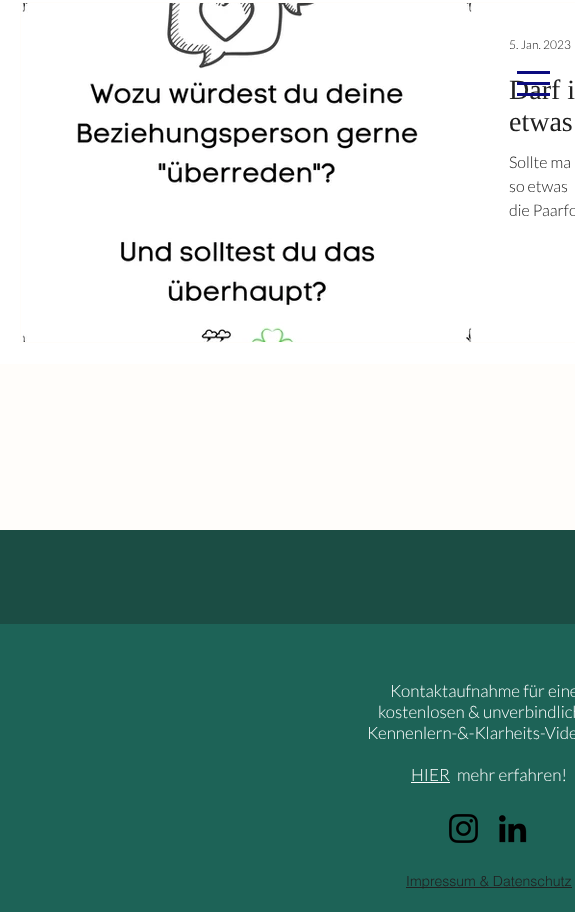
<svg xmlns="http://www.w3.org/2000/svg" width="575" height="912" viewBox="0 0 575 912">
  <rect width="100%" height="100%" fill="#fffdfa"/>
  <rect x="0" y="0" width="575" height="364" fill="#ffffff"/>
  <rect x="20.5" y="2.5" width="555" height="340" fill="none" stroke="#fffdfa"/>
  <image x="21" y="3" width="451" height="339" href="img1.png"/>
  <text x="509" y="49" font-family="Lato" font-size="12" font-weight="300" fill="#212121">5. Jan. 2023</text>
  <text x="509" y="99" font-family="Liberation Serif" font-size="28" fill="#212121">Darf i</text>
  <text x="509" y="131" font-family="Liberation Serif" font-size="28" fill="#212121">etwas</text>
  <text x="509" y="168" font-family="Lato" font-size="16" font-weight="300" fill="#212121">Sollte ma</text>
  <text x="509" y="192" font-family="Lato" font-size="16" font-weight="300" fill="#212121">so etwas</text>
  <text x="509" y="216" font-family="Lato" font-size="16" font-weight="300" fill="#212121">die Paarfo</text>
  <rect x="517" y="93" width="33" height="3" fill="#0b0b7f"/>
  <rect x="517" y="71" width="33" height="3" fill="#0b0b7f"/>
  <rect x="517" y="82" width="33" height="3" fill="#0b0b7f"/>
  <rect x="0" y="530" width="575" height="94" fill="#1b4d44"/>
  <rect x="0" y="624" width="575" height="288" fill="#1d6357"/>
  <text x="390" y="697" font-family="Lato" font-size="17" font-weight="300" fill="#ffffff">Kontaktaufnahme für eine</text>
  <text x="378" y="718" font-family="Lato" font-size="17" font-weight="300" fill="#ffffff">kostenlosen &amp; unverbindlich</text>
  <text x="367" y="739" font-family="Lato" font-size="17" font-weight="300" fill="#ffffff">Kennenlern-&amp;-Klarheits-Vide</text>
  <text x="411" y="781" font-family="Lato" font-size="17" font-weight="300" fill="#ffffff">HIER</text>
  <rect x="411" y="782" width="39" height="1" fill="#ffffff"/>
  <text x="457" y="781" font-family="Lato" font-size="17" font-weight="300" fill="#ffffff">mehr erfahren!</text>
  <rect x="406" y="887" width="166" height="1" fill="#212121"/>
  <text x="406" y="886" font-family="helvetica" font-size="14" font-weight="300" fill="#212121">Impressum &amp; Datenschutz</text>
  <image x="449" y="814" width="29" height="29" href="img2.png"/>
  <image x="499" y="815" width="28" height="28" href="img3.png"/>
</svg>
